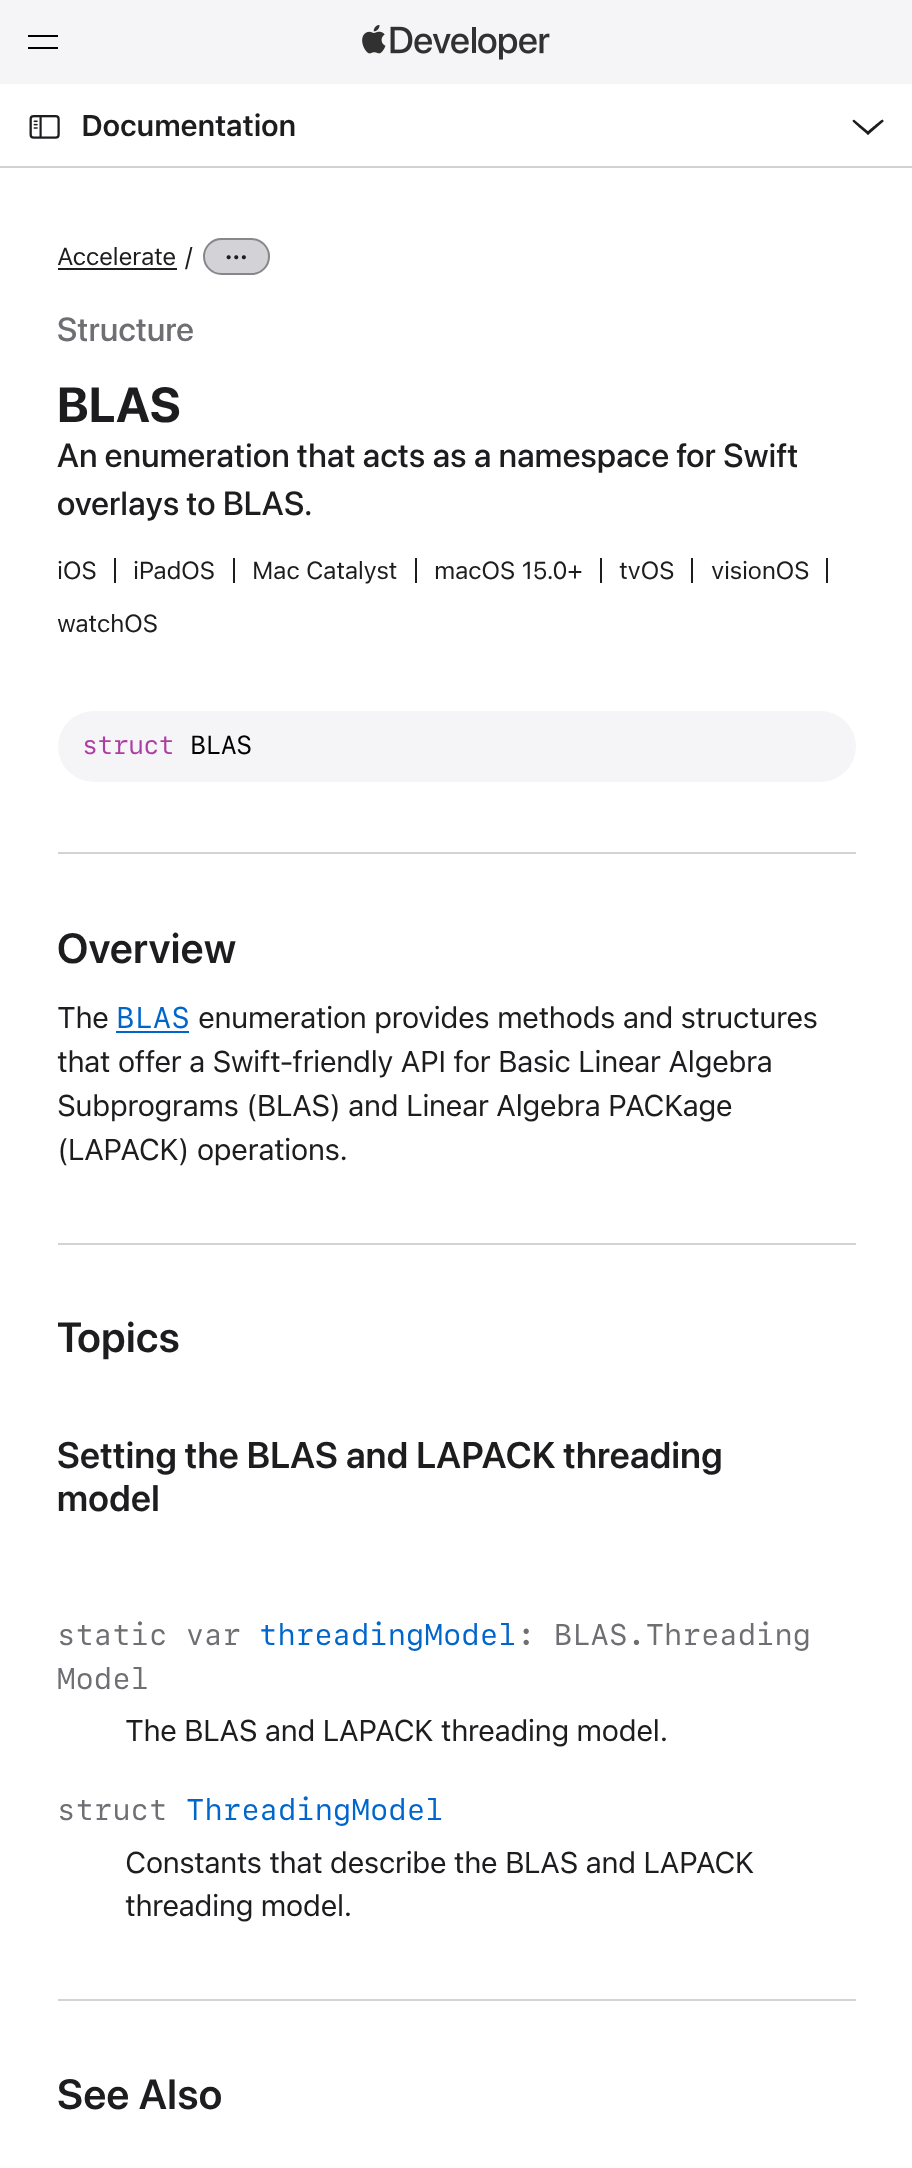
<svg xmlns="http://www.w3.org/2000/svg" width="912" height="2168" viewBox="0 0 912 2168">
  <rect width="100%" height="100%" fill="#ffffff"/>
  <rect x="0" y="0" width="912" height="84" fill="#f5f5f7"/>
  <rect x="28" y="35" width="30" height="2" fill="#000000"/>
  <rect x="28" y="47" width="30" height="2" fill="#000000"/>
  <image x="362" y="25" width="188" height="35" href="img1.png"/>
  <image x="29" y="115" width="31" height="24" href="img2.png"/>
  <text x="81" y="136" font-family="SF Pro Text" font-size="29.75" font-weight="600" letter-spacing="-0.65" fill="#1d1d1f">Documentation</text>
  <path d="M854.5 120L869.5 132.5L868 135C866 133 852.5 122 852.5 121C852.5 120.5 853.5 119 854.5 120Z" fill="#1d1d1f"/>
  <path d="M866.5 132.5C868 131 881.5 119.5 882.5 119.5C883 120 884 121 883.5 121.5L868 135Z" fill="#1d1d1f"/>
  <rect x="0" y="166" width="912" height="2" fill="#d2d2d2"/>
  <text x="57" y="265" font-family="SF Pro Text" font-size="24.5" letter-spacing="-0.4" fill="#1d1d1f">Accelerate</text>
  <rect x="58" y="268" width="119" height="2" fill="#1d1d1f"/>
  <text x="185" y="265" font-family="SF Pro Text" font-size="24.5" letter-spacing="-0.4" fill="#1d1d1f">/</text>
  <rect x="204" y="239" width="65" height="35" rx="17.5" fill="#d2d2d7" stroke="#86868b" stroke-width="2"/>
  <image x="226" y="255" width="20" height="5" href="img3.png"/>
  <text x="57" y="341" font-family="SF Pro Display" font-size="33.25" font-weight="500" letter-spacing="0.4" fill="#6e6e73">Structure</text>
  <text x="57" y="422" font-family="SF Pro Display" font-size="49" font-weight="bold" letter-spacing="0.5" fill="#1d1d1f">BLAS</text>
  <text x="57" y="467" font-family="SF Pro Display" font-size="33.25" font-weight="500" letter-spacing="0.4" fill="#1d1d1f">An enumeration that acts as a namespace for Swift</text>
  <text x="57" y="515" font-family="SF Pro Display" font-size="33.25" font-weight="500" letter-spacing="0.4" fill="#1d1d1f">overlays to BLAS.</text>
  <text x="57" y="579" font-family="SF Pro Text" font-size="24.5" letter-spacing="-0.4" fill="#1d1d1f">iOS</text>
  <rect x="114" y="558" width="2" height="25" fill="#1d1d1f"/>
  <text x="133" y="579" font-family="SF Pro Text" font-size="24.5" letter-spacing="-0.4" fill="#1d1d1f">iPadOS</text>
  <rect x="233" y="558" width="2" height="25" fill="#1d1d1f"/>
  <text x="252" y="579" font-family="SF Pro Text" font-size="24.5" letter-spacing="-0.4" fill="#1d1d1f">Mac Catalyst</text>
  <rect x="415" y="558" width="2" height="25" fill="#1d1d1f"/>
  <text x="434" y="579" font-family="SF Pro Text" font-size="24.5" letter-spacing="-0.4" fill="#1d1d1f">macOS 15.0+</text>
  <rect x="600" y="558" width="2" height="25" fill="#1d1d1f"/>
  <text x="619" y="579" font-family="SF Pro Text" font-size="24.5" letter-spacing="-0.4" fill="#1d1d1f">tvOS</text>
  <rect x="691" y="558" width="2" height="25" fill="#1d1d1f"/>
  <text x="711" y="579" font-family="SF Pro Text" font-size="24.5" letter-spacing="-0.4" fill="#1d1d1f">visionOS</text>
  <rect x="826" y="558" width="2" height="25" fill="#1d1d1f"/>
  <text x="57" y="632" font-family="SF Pro Text" font-size="24.5" letter-spacing="-0.4" fill="#1d1d1f">watchOS</text>
  <rect x="58" y="711" width="798" height="71" rx="35.5" fill="#f5f5f7"/>
  <text x="82" y="754" font-family="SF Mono" font-size="26" letter-spacing="-0.75" fill="#ad3da4">struct</text>
  <text x="190" y="754" font-family="SF Mono" font-size="26" letter-spacing="-0.75" fill="#000000">BLAS</text>
  <rect x="58" y="852" width="798" height="2" fill="#d2d2d7"/>
  <text x="57" y="963" font-family="SF Pro Display" font-size="42" font-weight="600" letter-spacing="0.5" fill="#1d1d1f">Overview</text>
  <text x="57" y="1028" font-family="SF Pro Text" font-size="29.75" letter-spacing="-0.65" fill="#1d1d1f">The</text>
  <text x="116" y="1028" font-family="SF Mono" font-size="29.75" fill="#0066cc">BLAS</text>
  <rect x="116" y="1031" width="73" height="2" fill="#0066cc"/>
  <text x="198" y="1028" font-family="SF Pro Text" font-size="29.75" letter-spacing="-0.65" fill="#1d1d1f">enumeration provides methods and structures</text>
  <text x="57" y="1072" font-family="SF Pro Text" font-size="29.75" letter-spacing="-0.65" fill="#1d1d1f">that offer a Swift-friendly API for Basic Linear Algebra</text>
  <text x="57" y="1116" font-family="SF Pro Text" font-size="29.75" letter-spacing="-0.65" fill="#1d1d1f">Subprograms (BLAS) and Linear Algebra PACKage</text>
  <text x="57" y="1160" font-family="SF Pro Text" font-size="29.75" letter-spacing="-0.65" fill="#1d1d1f">(LAPACK) operations.</text>
  <rect x="58" y="1243" width="798" height="2" fill="#d2d2d7"/>
  <text x="57" y="1352" font-family="SF Pro Display" font-size="42" font-weight="600" letter-spacing="0.5" fill="#1d1d1f">Topics</text>
  <text x="57" y="1468" font-family="SF Pro Display" font-size="36.75" font-weight="600" letter-spacing="0.4" fill="#1d1d1f">Setting the BLAS and LAPACK threading</text>
  <text x="57" y="1511" font-family="SF Pro Display" font-size="36.75" font-weight="600" letter-spacing="0.4" fill="#1d1d1f">model</text>
  <text x="57" y="1645" font-family="SF Mono" font-size="29.75" fill="#6e6e73">static var</text>
  <text x="259" y="1645" font-family="SF Mono" font-size="29.75" fill="#0066cc">threadingModel</text>
  <text x="517" y="1645" font-family="SF Mono" font-size="29.75" fill="#6e6e73">: BLAS.Threading</text>
  <text x="57" y="1689" font-family="SF Mono" font-size="29.75" fill="#6e6e73">Model</text>
  <text x="125" y="1741" font-family="SF Pro Text" font-size="29.75" letter-spacing="-0.65" fill="#1d1d1f">The BLAS and LAPACK threading model.</text>
  <text x="57" y="1820" font-family="SF Mono" font-size="29.75" fill="#6e6e73">struct</text>
  <text x="186" y="1820" font-family="SF Mono" font-size="29.75" fill="#0066cc">ThreadingModel</text>
  <text x="125" y="1873" font-family="SF Pro Text" font-size="29.75" letter-spacing="-0.65" fill="#1d1d1f">Constants that describe the BLAS and LAPACK</text>
  <text x="125" y="1916" font-family="SF Pro Text" font-size="29.75" letter-spacing="-0.65" fill="#1d1d1f">threading model.</text>
  <rect x="58" y="1999" width="798" height="2" fill="#d2d2d7"/>
  <text x="57" y="2109" font-family="SF Pro Display" font-size="42" font-weight="600" letter-spacing="0.5" fill="#1d1d1f">See Also</text>
</svg>
